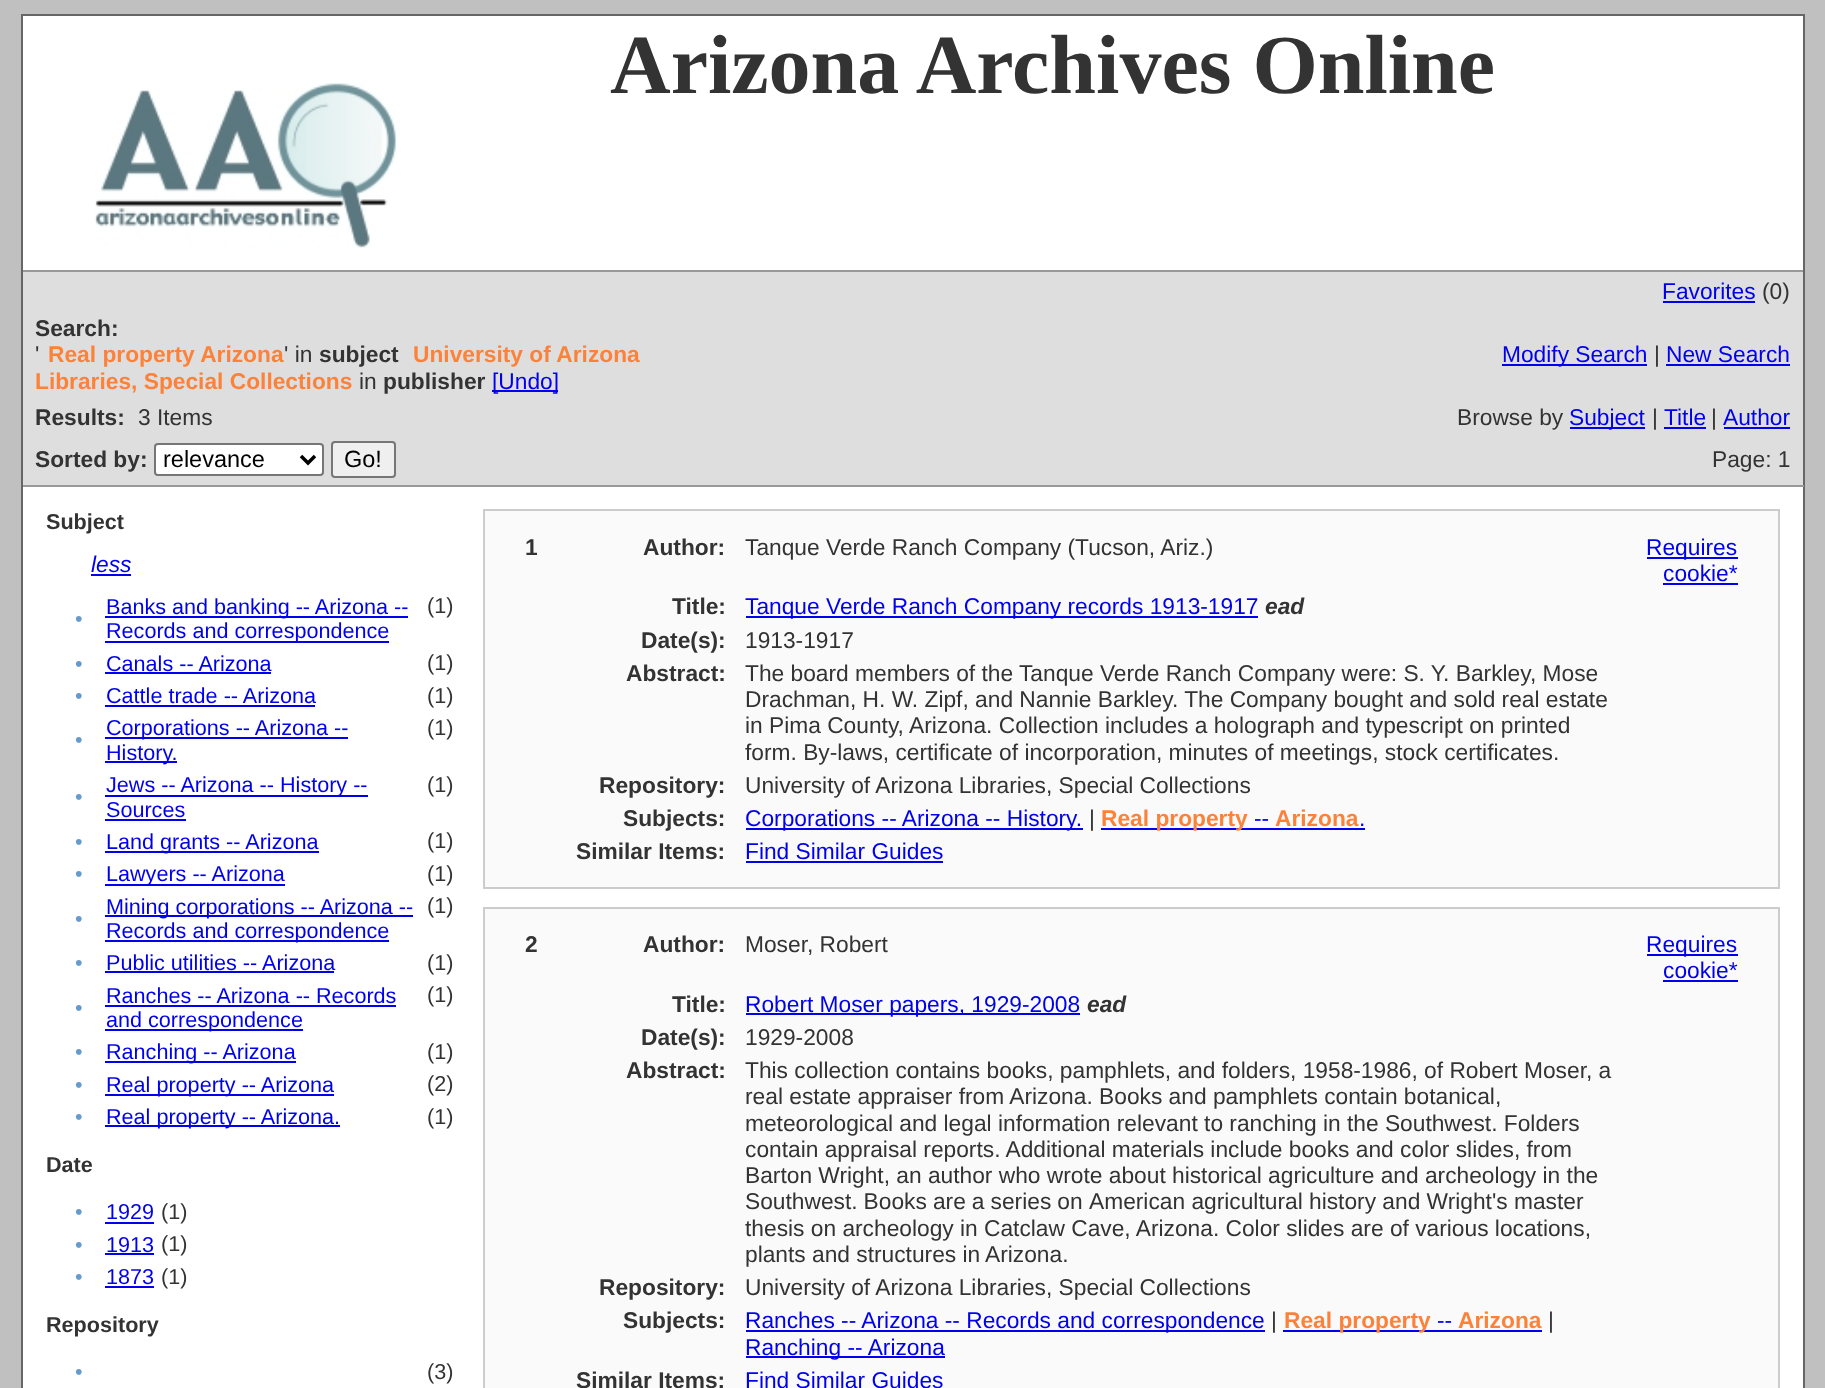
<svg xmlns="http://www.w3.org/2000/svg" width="1825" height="1388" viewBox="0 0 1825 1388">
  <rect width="100%" height="100%" fill="#c0c0c0"/>
  <rect x="23" y="16" width="1780" height="254" fill="#ffffff"/>
  <rect x="21" y="14" width="1783" height="2" fill="#666666"/>
  <rect x="1803" y="14" width="2" height="256" fill="#666666"/>
  <rect x="21" y="14" width="2" height="256" fill="#666666"/>
  <text x="610" y="93" font-family="Liberation Serif" font-size="84" font-weight="bold" fill="#333333">Arizona Archives Online</text>
  <image x="94" y="83" width="303" height="165" href="img1.png"/>
  <rect x="23" y="272" width="1780" height="213" fill="#dededf"/>
  <rect x="21" y="270" width="1783" height="2" fill="#999999"/>
  <rect x="1803" y="270" width="2" height="1118" fill="#666666"/>
  <rect x="21" y="485" width="1783" height="2" fill="#999999"/>
  <rect x="21" y="270" width="2" height="1118" fill="#666666"/>
  <text x="1662" y="299" font-family="Liberation Sans" font-size="22.75" fill="#0000ee">Favorites</text>
  <rect x="1663" y="301" width="92" height="2" fill="#0000ee"/>
  <text x="1762" y="299" font-family="Liberation Sans" font-size="22.75" fill="#333333">(0)</text>
  <text x="35" y="336" font-family="Liberation Sans" font-size="22.75" font-weight="bold" fill="#333333">Search:</text>
  <text x="35" y="362" font-family="Liberation Sans" font-size="22.75" fill="#333333">'</text>
  <text x="48" y="362" font-family="Liberation Sans" font-size="22.75" font-weight="bold" fill="#fd8239">Real property Arizona</text>
  <text x="284" y="362" font-family="Liberation Sans" font-size="22.75" fill="#333333">' in</text>
  <text x="319" y="362" font-family="Liberation Sans" font-size="22.75" font-weight="bold" fill="#333333">subject</text>
  <text x="413" y="362" font-family="Liberation Sans" font-size="22.75" font-weight="bold" fill="#fd8239">University of Arizona</text>
  <text x="35" y="389" font-family="Liberation Sans" font-size="22.75" font-weight="bold" fill="#fd8239">Libraries, Special Collections</text>
  <text x="359" y="389" font-family="Liberation Sans" font-size="22.75" fill="#333333">in</text>
  <text x="383" y="389" font-family="Liberation Sans" font-size="22.75" font-weight="bold" fill="#333333">publisher</text>
  <rect x="492" y="390" width="66" height="2" fill="#0000ee"/>
  <text x="492" y="389" font-family="Liberation Sans" font-size="22.75" fill="#0000ee">[Undo]</text>
  <rect x="1502" y="364" width="145" height="2" fill="#0000ee"/>
  <text x="1502" y="362" font-family="Liberation Sans" font-size="22.75" fill="#0000ee">Modify Search</text>
  <text x="1654" y="362" font-family="Liberation Sans" font-size="22.75" fill="#333333">|</text>
  <text x="1666" y="362" font-family="Liberation Sans" font-size="22.75" fill="#0000ee">New Search</text>
  <rect x="1666" y="364" width="124" height="2" fill="#0000ee"/>
  <text x="35" y="425" font-family="Liberation Sans" font-size="22.75" font-weight="bold" fill="#333333">Results:</text>
  <text x="138" y="425" font-family="Liberation Sans" font-size="22.75" fill="#333333">3 Items</text>
  <text x="1457" y="425" font-family="Liberation Sans" font-size="22.75" fill="#333333">Browse by</text>
  <rect x="1570" y="427" width="75" height="2" fill="#0000ee"/>
  <text x="1569" y="425" font-family="Liberation Sans" font-size="22.75" fill="#0000ee">Subject</text>
  <text x="1652" y="425" font-family="Liberation Sans" font-size="22.75" fill="#333333">|</text>
  <text x="1664" y="425" font-family="Liberation Sans" font-size="22.75" fill="#0000ee">Title</text>
  <rect x="1664" y="427" width="42" height="2" fill="#0000ee"/>
  <text x="1711" y="425" font-family="Liberation Sans" font-size="22.75" fill="#333333">|</text>
  <text x="1723" y="425" font-family="Liberation Sans" font-size="22.75" fill="#0000ee">Author</text>
  <rect x="1724" y="427" width="66" height="2" fill="#0000ee"/>
  <text x="35" y="467" font-family="Liberation Sans" font-size="22.75" font-weight="bold" fill="#333333">Sorted by:</text>
  <rect x="155" y="444" width="168" height="31" rx="3" fill="#ffffff" stroke="#767676" stroke-width="2"/>
  <path d="M301 456L308 463L315 456" fill="none" stroke="#000000" stroke-width="3.5"/>
  <text x="163" y="467" font-family="Liberation Sans" font-size="23.5" fill="#000000">relevance</text>
  <rect x="332" y="442" width="63" height="35" rx="3" fill="#efefef" stroke="#767676" stroke-width="2"/>
  <text x="344" y="467" font-family="Liberation Sans" font-size="23.5" fill="#000000">Go!</text>
  <text x="1712" y="467" font-family="Liberation Sans" font-size="22.75" fill="#333333">Page: 1</text>
  <rect x="23" y="487" width="1780" height="901" fill="#ffffff"/>
  <text x="46" y="529" font-family="Liberation Sans" font-size="21.6" font-weight="bold" fill="#333333">Subject</text>
  <text x="91" y="572" font-family="Liberation Sans" font-size="22.75" font-style="italic" fill="#0000ee">less</text>
  <rect x="91" y="574" width="40" height="2" fill="#0000ee"/>
  <text x="75" y="626" font-family="Liberation Sans" font-size="21.6" fill="#6699cc">•</text>
  <rect x="105" y="616" width="303" height="2" fill="#0000ee"/>
  <text x="106" y="614" font-family="Liberation Sans" font-size="21.6" fill="#0000ee">Banks and banking -- Arizona --</text>
  <rect x="105" y="641" width="284" height="2" fill="#0000ee"/>
  <text x="106" y="638" font-family="Liberation Sans" font-size="21.6" fill="#0000ee">Records and correspondence</text>
  <text x="427" y="613" font-family="Liberation Sans" font-size="21.6" fill="#333333">(1)</text>
  <text x="75" y="671" font-family="Liberation Sans" font-size="21.6" fill="#6699cc">•</text>
  <text x="106" y="671" font-family="Liberation Sans" font-size="21.6" fill="#0000ee">Canals -- Arizona</text>
  <rect x="105" y="672" width="166" height="2" fill="#0000ee"/>
  <text x="427" y="670" font-family="Liberation Sans" font-size="21.6" fill="#333333">(1)</text>
  <text x="75" y="703" font-family="Liberation Sans" font-size="21.6" fill="#6699cc">•</text>
  <text x="106" y="703" font-family="Liberation Sans" font-size="21.6" fill="#0000ee">Cattle trade -- Arizona</text>
  <rect x="105" y="705" width="210" height="2" fill="#0000ee"/>
  <text x="427" y="703" font-family="Liberation Sans" font-size="21.6" fill="#333333">(1)</text>
  <text x="75" y="747" font-family="Liberation Sans" font-size="21.6" fill="#6699cc">•</text>
  <rect x="105" y="737" width="243" height="2" fill="#0000ee"/>
  <text x="106" y="735" font-family="Liberation Sans" font-size="21.6" fill="#0000ee">Corporations -- Arizona --</text>
  <rect x="105" y="761" width="72" height="2" fill="#0000ee"/>
  <text x="106" y="760" font-family="Liberation Sans" font-size="21.6" fill="#0000ee">History.</text>
  <text x="427" y="735" font-family="Liberation Sans" font-size="21.6" fill="#333333">(1)</text>
  <text x="75" y="804" font-family="Liberation Sans" font-size="21.6" fill="#6699cc">•</text>
  <rect x="105" y="795" width="263" height="2" fill="#0000ee"/>
  <text x="106" y="792" font-family="Liberation Sans" font-size="21.6" fill="#0000ee">Jews -- Arizona -- History --</text>
  <text x="106" y="817" font-family="Liberation Sans" font-size="21.6" fill="#0000ee">Sources</text>
  <rect x="105" y="819" width="81" height="2" fill="#0000ee"/>
  <text x="427" y="792" font-family="Liberation Sans" font-size="21.6" fill="#333333">(1)</text>
  <text x="75" y="849" font-family="Liberation Sans" font-size="21.6" fill="#6699cc">•</text>
  <rect x="105" y="851" width="214" height="2" fill="#0000ee"/>
  <text x="106" y="849" font-family="Liberation Sans" font-size="21.6" fill="#0000ee">Land grants -- Arizona</text>
  <text x="427" y="848" font-family="Liberation Sans" font-size="21.6" fill="#333333">(1)</text>
  <text x="75" y="881" font-family="Liberation Sans" font-size="21.6" fill="#6699cc">•</text>
  <rect x="105" y="884" width="180" height="2" fill="#0000ee"/>
  <text x="106" y="881" font-family="Liberation Sans" font-size="21.6" fill="#0000ee">Lawyers -- Arizona</text>
  <text x="427" y="881" font-family="Liberation Sans" font-size="21.6" fill="#333333">(1)</text>
  <text x="75" y="926" font-family="Liberation Sans" font-size="21.6" fill="#6699cc">•</text>
  <rect x="105" y="915" width="308" height="2" fill="#0000ee"/>
  <text x="106" y="914" font-family="Liberation Sans" font-size="21.6" fill="#0000ee">Mining corporations -- Arizona --</text>
  <rect x="105" y="940" width="284" height="2" fill="#0000ee"/>
  <text x="106" y="938" font-family="Liberation Sans" font-size="21.6" fill="#0000ee">Records and correspondence</text>
  <text x="427" y="913" font-family="Liberation Sans" font-size="21.6" fill="#333333">(1)</text>
  <text x="75" y="970" font-family="Liberation Sans" font-size="21.6" fill="#6699cc">•</text>
  <text x="106" y="970" font-family="Liberation Sans" font-size="21.6" fill="#0000ee">Public utilities -- Arizona</text>
  <rect x="105" y="971" width="229" height="2" fill="#0000ee"/>
  <text x="427" y="970" font-family="Liberation Sans" font-size="21.6" fill="#333333">(1)</text>
  <text x="75" y="1015" font-family="Liberation Sans" font-size="21.6" fill="#6699cc">•</text>
  <text x="106" y="1003" font-family="Liberation Sans" font-size="21.6" fill="#0000ee">Ranches -- Arizona -- Records</text>
  <rect x="105" y="1005" width="291" height="2" fill="#0000ee"/>
  <rect x="105" y="1029" width="198" height="2" fill="#0000ee"/>
  <text x="106" y="1027" font-family="Liberation Sans" font-size="21.6" fill="#0000ee">and correspondence</text>
  <text x="427" y="1002" font-family="Liberation Sans" font-size="21.6" fill="#333333">(1)</text>
  <text x="75" y="1059" font-family="Liberation Sans" font-size="21.6" fill="#6699cc">•</text>
  <rect x="105" y="1061" width="191" height="2" fill="#0000ee"/>
  <text x="106" y="1059" font-family="Liberation Sans" font-size="21.6" fill="#0000ee">Ranching -- Arizona</text>
  <text x="427" y="1059" font-family="Liberation Sans" font-size="21.6" fill="#333333">(1)</text>
  <text x="75" y="1092" font-family="Liberation Sans" font-size="21.6" fill="#6699cc">•</text>
  <rect x="105" y="1094" width="229" height="2" fill="#0000ee"/>
  <text x="106" y="1092" font-family="Liberation Sans" font-size="21.6" fill="#0000ee">Real property -- Arizona</text>
  <text x="427" y="1091" font-family="Liberation Sans" font-size="21.6" fill="#333333">(2)</text>
  <text x="75" y="1124" font-family="Liberation Sans" font-size="21.6" fill="#6699cc">•</text>
  <rect x="105" y="1125" width="235" height="2" fill="#0000ee"/>
  <text x="106" y="1124" font-family="Liberation Sans" font-size="21.6" fill="#0000ee">Real property -- Arizona.</text>
  <text x="427" y="1124" font-family="Liberation Sans" font-size="21.6" fill="#333333">(1)</text>
  <text x="46" y="1172" font-family="Liberation Sans" font-size="21.6" font-weight="bold" fill="#333333">Date</text>
  <text x="75" y="1219" font-family="Liberation Sans" font-size="21.6" fill="#6699cc">•</text>
  <text x="106" y="1219" font-family="Liberation Sans" font-size="21.6" fill="#0000ee">1929</text>
  <rect x="105" y="1222" width="49" height="2" fill="#0000ee"/>
  <text x="161" y="1219" font-family="Liberation Sans" font-size="21.6" fill="#333333">(1)</text>
  <text x="75" y="1252" font-family="Liberation Sans" font-size="21.6" fill="#6699cc">•</text>
  <text x="106" y="1252" font-family="Liberation Sans" font-size="21.6" fill="#0000ee">1913</text>
  <rect x="105" y="1253" width="49" height="2" fill="#0000ee"/>
  <text x="161" y="1251" font-family="Liberation Sans" font-size="21.6" fill="#333333">(1)</text>
  <text x="75" y="1284" font-family="Liberation Sans" font-size="21.6" fill="#6699cc">•</text>
  <text x="106" y="1284" font-family="Liberation Sans" font-size="21.6" fill="#0000ee">1873</text>
  <rect x="105" y="1286" width="49" height="2" fill="#0000ee"/>
  <text x="161" y="1284" font-family="Liberation Sans" font-size="21.6" fill="#333333">(1)</text>
  <text x="46" y="1332" font-family="Liberation Sans" font-size="21.6" font-weight="bold" fill="#333333">Repository</text>
  <text x="75" y="1379" font-family="Liberation Sans" font-size="21.6" fill="#6699cc">•</text>
  <text x="427" y="1379" font-family="Liberation Sans" font-size="21.6" fill="#333333">(3)</text>
  <rect x="484" y="510" width="1295" height="378" fill="#fafafb" stroke="#cccccc" stroke-width="2"/>
  <text x="525" y="555" font-family="Liberation Sans" font-size="22.75" font-weight="bold" fill="#333333">1</text>
  <text x="643" y="555" font-family="Liberation Sans" font-size="22.75" font-weight="bold" fill="#333333">Author:</text>
  <text x="745" y="555" font-family="Liberation Sans" font-size="22.75" fill="#333333">Tanque Verde Ranch Company (Tucson, Ariz.)</text>
  <rect x="1647" y="557" width="91" height="2" fill="#0000ee"/>
  <text x="1646" y="555" font-family="Liberation Sans" font-size="22.75" fill="#0000ee">Requires</text>
  <text x="1663" y="581" font-family="Liberation Sans" font-size="22.75" fill="#0000ee">cookie*</text>
  <rect x="1663" y="583" width="75" height="2" fill="#0000ee"/>
  <text x="672" y="614" font-family="Liberation Sans" font-size="22.75" font-weight="bold" fill="#333333">Title:</text>
  <rect x="746" y="616" width="512" height="2" fill="#0000ee"/>
  <text x="745" y="614" font-family="Liberation Sans" font-size="22.75" fill="#0000ee">Tanque Verde Ranch Company records 1913-1917</text>
  <text x="1265" y="614" font-family="Liberation Sans" font-size="22.75" font-weight="bold" font-style="italic" fill="#333333">ead</text>
  <text x="641" y="648" font-family="Liberation Sans" font-size="22.75" font-weight="bold" fill="#333333">Date(s):</text>
  <text x="745" y="648" font-family="Liberation Sans" font-size="22.75" fill="#333333">1913-1917</text>
  <text x="626" y="681" font-family="Liberation Sans" font-size="22.75" font-weight="bold" fill="#333333">Abstract:</text>
  <text x="745" y="681" font-family="Liberation Sans" font-size="22.75" fill="#333333">The board members of the Tanque Verde Ranch Company were: S. Y. Barkley, Mose</text>
  <text x="745" y="707" font-family="Liberation Sans" font-size="22.75" fill="#333333">Drachman, H. W. Zipf, and Nannie Barkley. The Company bought and sold real estate</text>
  <text x="745" y="733" font-family="Liberation Sans" font-size="22.75" fill="#333333">in Pima County, Arizona. Collection includes a holograph and typescript on printed</text>
  <text x="745" y="760" font-family="Liberation Sans" font-size="22.75" fill="#333333">form. By-laws, certificate of incorporation, minutes of meetings, stock certificates.</text>
  <text x="599" y="793" font-family="Liberation Sans" font-size="22.75" font-weight="bold" fill="#333333">Repository:</text>
  <text x="745" y="793" font-family="Liberation Sans" font-size="22.75" fill="#333333">University of Arizona Libraries, Special Collections</text>
  <text x="623" y="826" font-family="Liberation Sans" font-size="22.75" font-weight="bold" fill="#333333">Subjects:</text>
  <rect x="746" y="828" width="337" height="2" fill="#0000ee"/>
  <text x="745" y="826" font-family="Liberation Sans" font-size="22.75" fill="#0000ee">Corporations -- Arizona -- History.</text>
  <text x="1089" y="826" font-family="Liberation Sans" font-size="22.75" fill="#333333">|</text>
  <rect x="1101" y="828" width="264" height="2" fill="#0000ee"/>
  <text x="1101" y="826" font-family="Liberation Sans" font-size="22.75" font-weight="bold" fill="#fd8239">Real property</text>
  <text x="1254" y="826" font-family="Liberation Sans" font-size="22.75" fill="#0000ee">--</text>
  <text x="1275" y="826" font-family="Liberation Sans" font-size="22.75" font-weight="bold" fill="#fd8239">Arizona</text>
  <text x="1359" y="826" font-family="Liberation Sans" font-size="22.75" fill="#0000ee">.</text>
  <text x="576" y="859" font-family="Liberation Sans" font-size="22.75" font-weight="bold" fill="#333333">Similar Items:</text>
  <text x="745" y="859" font-family="Liberation Sans" font-size="22.75" fill="#0000ee">Find Similar Guides</text>
  <rect x="746" y="861" width="197" height="2" fill="#0000ee"/>
  <rect x="484" y="908" width="1295" height="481" fill="#fafafb" stroke="#cccccc" stroke-width="2"/>
  <text x="525" y="952" font-family="Liberation Sans" font-size="22.75" font-weight="bold" fill="#333333">2</text>
  <text x="643" y="952" font-family="Liberation Sans" font-size="22.75" font-weight="bold" fill="#333333">Author:</text>
  <text x="745" y="952" font-family="Liberation Sans" font-size="22.75" fill="#333333">Moser, Robert</text>
  <rect x="1647" y="954" width="91" height="2" fill="#0000ee"/>
  <text x="1646" y="952" font-family="Liberation Sans" font-size="22.75" fill="#0000ee">Requires</text>
  <text x="1663" y="978" font-family="Liberation Sans" font-size="22.75" fill="#0000ee">cookie*</text>
  <rect x="1663" y="980" width="75" height="2" fill="#0000ee"/>
  <text x="672" y="1012" font-family="Liberation Sans" font-size="22.75" font-weight="bold" fill="#333333">Title:</text>
  <rect x="746" y="1013" width="334" height="2" fill="#0000ee"/>
  <text x="745" y="1012" font-family="Liberation Sans" font-size="22.75" fill="#0000ee">Robert Moser papers, 1929-2008</text>
  <text x="1087" y="1012" font-family="Liberation Sans" font-size="22.75" font-weight="bold" font-style="italic" fill="#333333">ead</text>
  <text x="641" y="1045" font-family="Liberation Sans" font-size="22.75" font-weight="bold" fill="#333333">Date(s):</text>
  <text x="745" y="1045" font-family="Liberation Sans" font-size="22.75" fill="#333333">1929-2008</text>
  <text x="626" y="1078" font-family="Liberation Sans" font-size="22.75" font-weight="bold" fill="#333333">Abstract:</text>
  <text x="745" y="1078" font-family="Liberation Sans" font-size="22.75" fill="#333333">This collection contains books, pamphlets, and folders, 1958-1986, of Robert Moser, a</text>
  <text x="745" y="1104" font-family="Liberation Sans" font-size="22.75" fill="#333333">real estate appraiser from Arizona. Books and pamphlets contain botanical,</text>
  <text x="745" y="1131" font-family="Liberation Sans" font-size="22.75" fill="#333333">meteorological and legal information relevant to ranching in the Southwest. Folders</text>
  <text x="745" y="1157" font-family="Liberation Sans" font-size="22.75" fill="#333333">contain appraisal reports. Additional materials include books and color slides, from</text>
  <text x="745" y="1183" font-family="Liberation Sans" font-size="22.75" fill="#333333">Barton Wright, an author who wrote about historical agriculture and archeology in the</text>
  <text x="745" y="1209" word-spacing="-0.25" font-family="Liberation Sans" font-size="22.75" fill="#333333">Southwest. Books are a series on</text>
  <text x="1089" y="1209" font-family="Liberation Sans" font-size="22.75" fill="#333333">American agricultural history and Wright's master</text>
  <text x="745" y="1236" font-family="Liberation Sans" font-size="22.75" fill="#333333">thesis on archeology in Catclaw Cave, Arizona. Color slides are of various locations,</text>
  <text x="745" y="1262" font-family="Liberation Sans" font-size="22.75" fill="#333333">plants and structures in</text>
  <text x="985" y="1262" font-family="Liberation Sans" font-size="22.75" fill="#333333">Arizona.</text>
  <text x="599" y="1295" font-family="Liberation Sans" font-size="22.75" font-weight="bold" fill="#333333">Repository:</text>
  <text x="745" y="1295" font-family="Liberation Sans" font-size="22.75" fill="#333333">University of Arizona Libraries, Special Collections</text>
  <text x="623" y="1328" font-family="Liberation Sans" font-size="22.75" font-weight="bold" fill="#333333">Subjects:</text>
  <rect x="746" y="1330" width="519" height="2" fill="#0000ee"/>
  <text x="745" y="1328" font-family="Liberation Sans" font-size="22.75" fill="#0000ee">Ranches -- Arizona -- Records and correspondence</text>
  <text x="1271" y="1328" font-family="Liberation Sans" font-size="22.75" fill="#333333">|</text>
  <rect x="1283" y="1330" width="147" height="2" fill="#0000ee"/>
  <text x="1284" y="1328" font-family="Liberation Sans" font-size="22.75" font-weight="bold" fill="#fd8239">Real property</text>
  <rect x="1430" y="1330" width="112" height="2" fill="#0000ee"/>
  <text x="1437" y="1328" font-family="Liberation Sans" font-size="22.75" fill="#0000ee">--</text>
  <text x="1458" y="1328" font-family="Liberation Sans" font-size="22.75" font-weight="bold" fill="#fd8239">Arizona</text>
  <text x="1548" y="1328" font-family="Liberation Sans" font-size="22.75" fill="#333333">|</text>
  <rect x="746" y="1356" width="199" height="2" fill="#0000ee"/>
  <text x="745" y="1355" font-family="Liberation Sans" font-size="22.75" fill="#0000ee">Ranching -- Arizona</text>
  <text x="576" y="1388" font-family="Liberation Sans" font-size="22.75" font-weight="bold" fill="#333333">Similar Items:</text>
  <text x="745" y="1388" font-family="Liberation Sans" font-size="22.75" fill="#0000ee">Find Similar Guides</text>
</svg>
